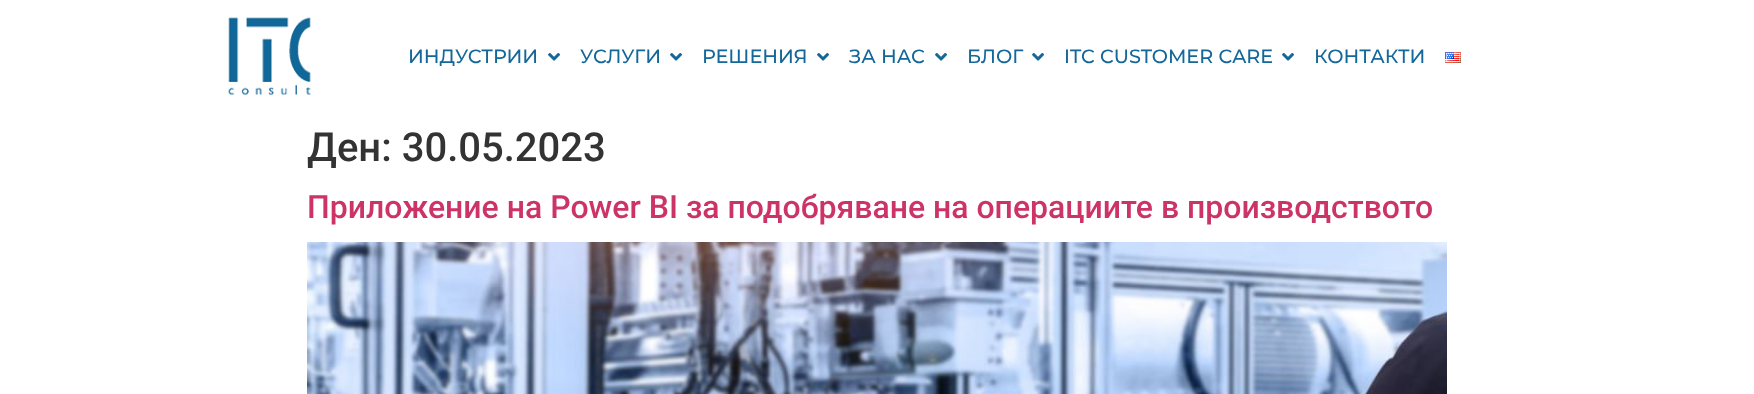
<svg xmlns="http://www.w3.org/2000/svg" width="1754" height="394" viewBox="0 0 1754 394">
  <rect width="100%" height="100%" fill="#ffffff"/>
  <image x="228" y="17" width="83" height="78" href="img1.png"/>
  <text x="408" y="63" font-family="Montserrat" font-size="19.25" font-weight="500" fill="#146799">ИНДУСТРИИ</text>
  <image x="548" y="53" width="12" height="8" href="img2.png"/>
  <text x="580" y="63" font-family="Montserrat" font-size="19.25" font-weight="500" fill="#146799">УСЛУГИ</text>
  <image x="670" y="53" width="12" height="8" href="img2.png"/>
  <text x="702" y="63" font-family="Montserrat" font-size="19.25" font-weight="500" fill="#146799">РЕШЕНИЯ</text>
  <image x="817" y="53" width="12" height="8" href="img2.png"/>
  <text x="849" y="63" font-family="Montserrat" font-size="19.25" font-weight="500" fill="#146799">ЗА НАС</text>
  <image x="935" y="53" width="12" height="8" href="img2.png"/>
  <text x="967" y="63" font-family="Montserrat" font-size="19.25" font-weight="500" fill="#146799">БЛОГ</text>
  <image x="1032" y="53" width="12" height="8" href="img2.png"/>
  <text x="1064" y="63" font-family="Montserrat" font-size="19.25" font-weight="500" fill="#146799">ITC CUSTOMER CARE</text>
  <image x="1282" y="53" width="12" height="8" href="img2.png"/>
  <text x="1314" y="63" font-family="Montserrat" font-size="19.25" font-weight="500" fill="#146799">КОНТАКТИ</text>
  <image x="1445" y="52" width="16" height="11" href="img3.png"/>
  <text x="307" y="161" font-family="Roboto" font-size="40" font-weight="500" fill="#333333">Ден: 30.05.2023</text>
  <text x="307" y="218" font-family="Roboto" font-size="32" font-weight="500" fill="#cc3366">Приложение на Power BI за подобряване на операциите в производството</text>
  <image x="307" y="242" width="1140" height="152" href="img4.png"/>
</svg>
